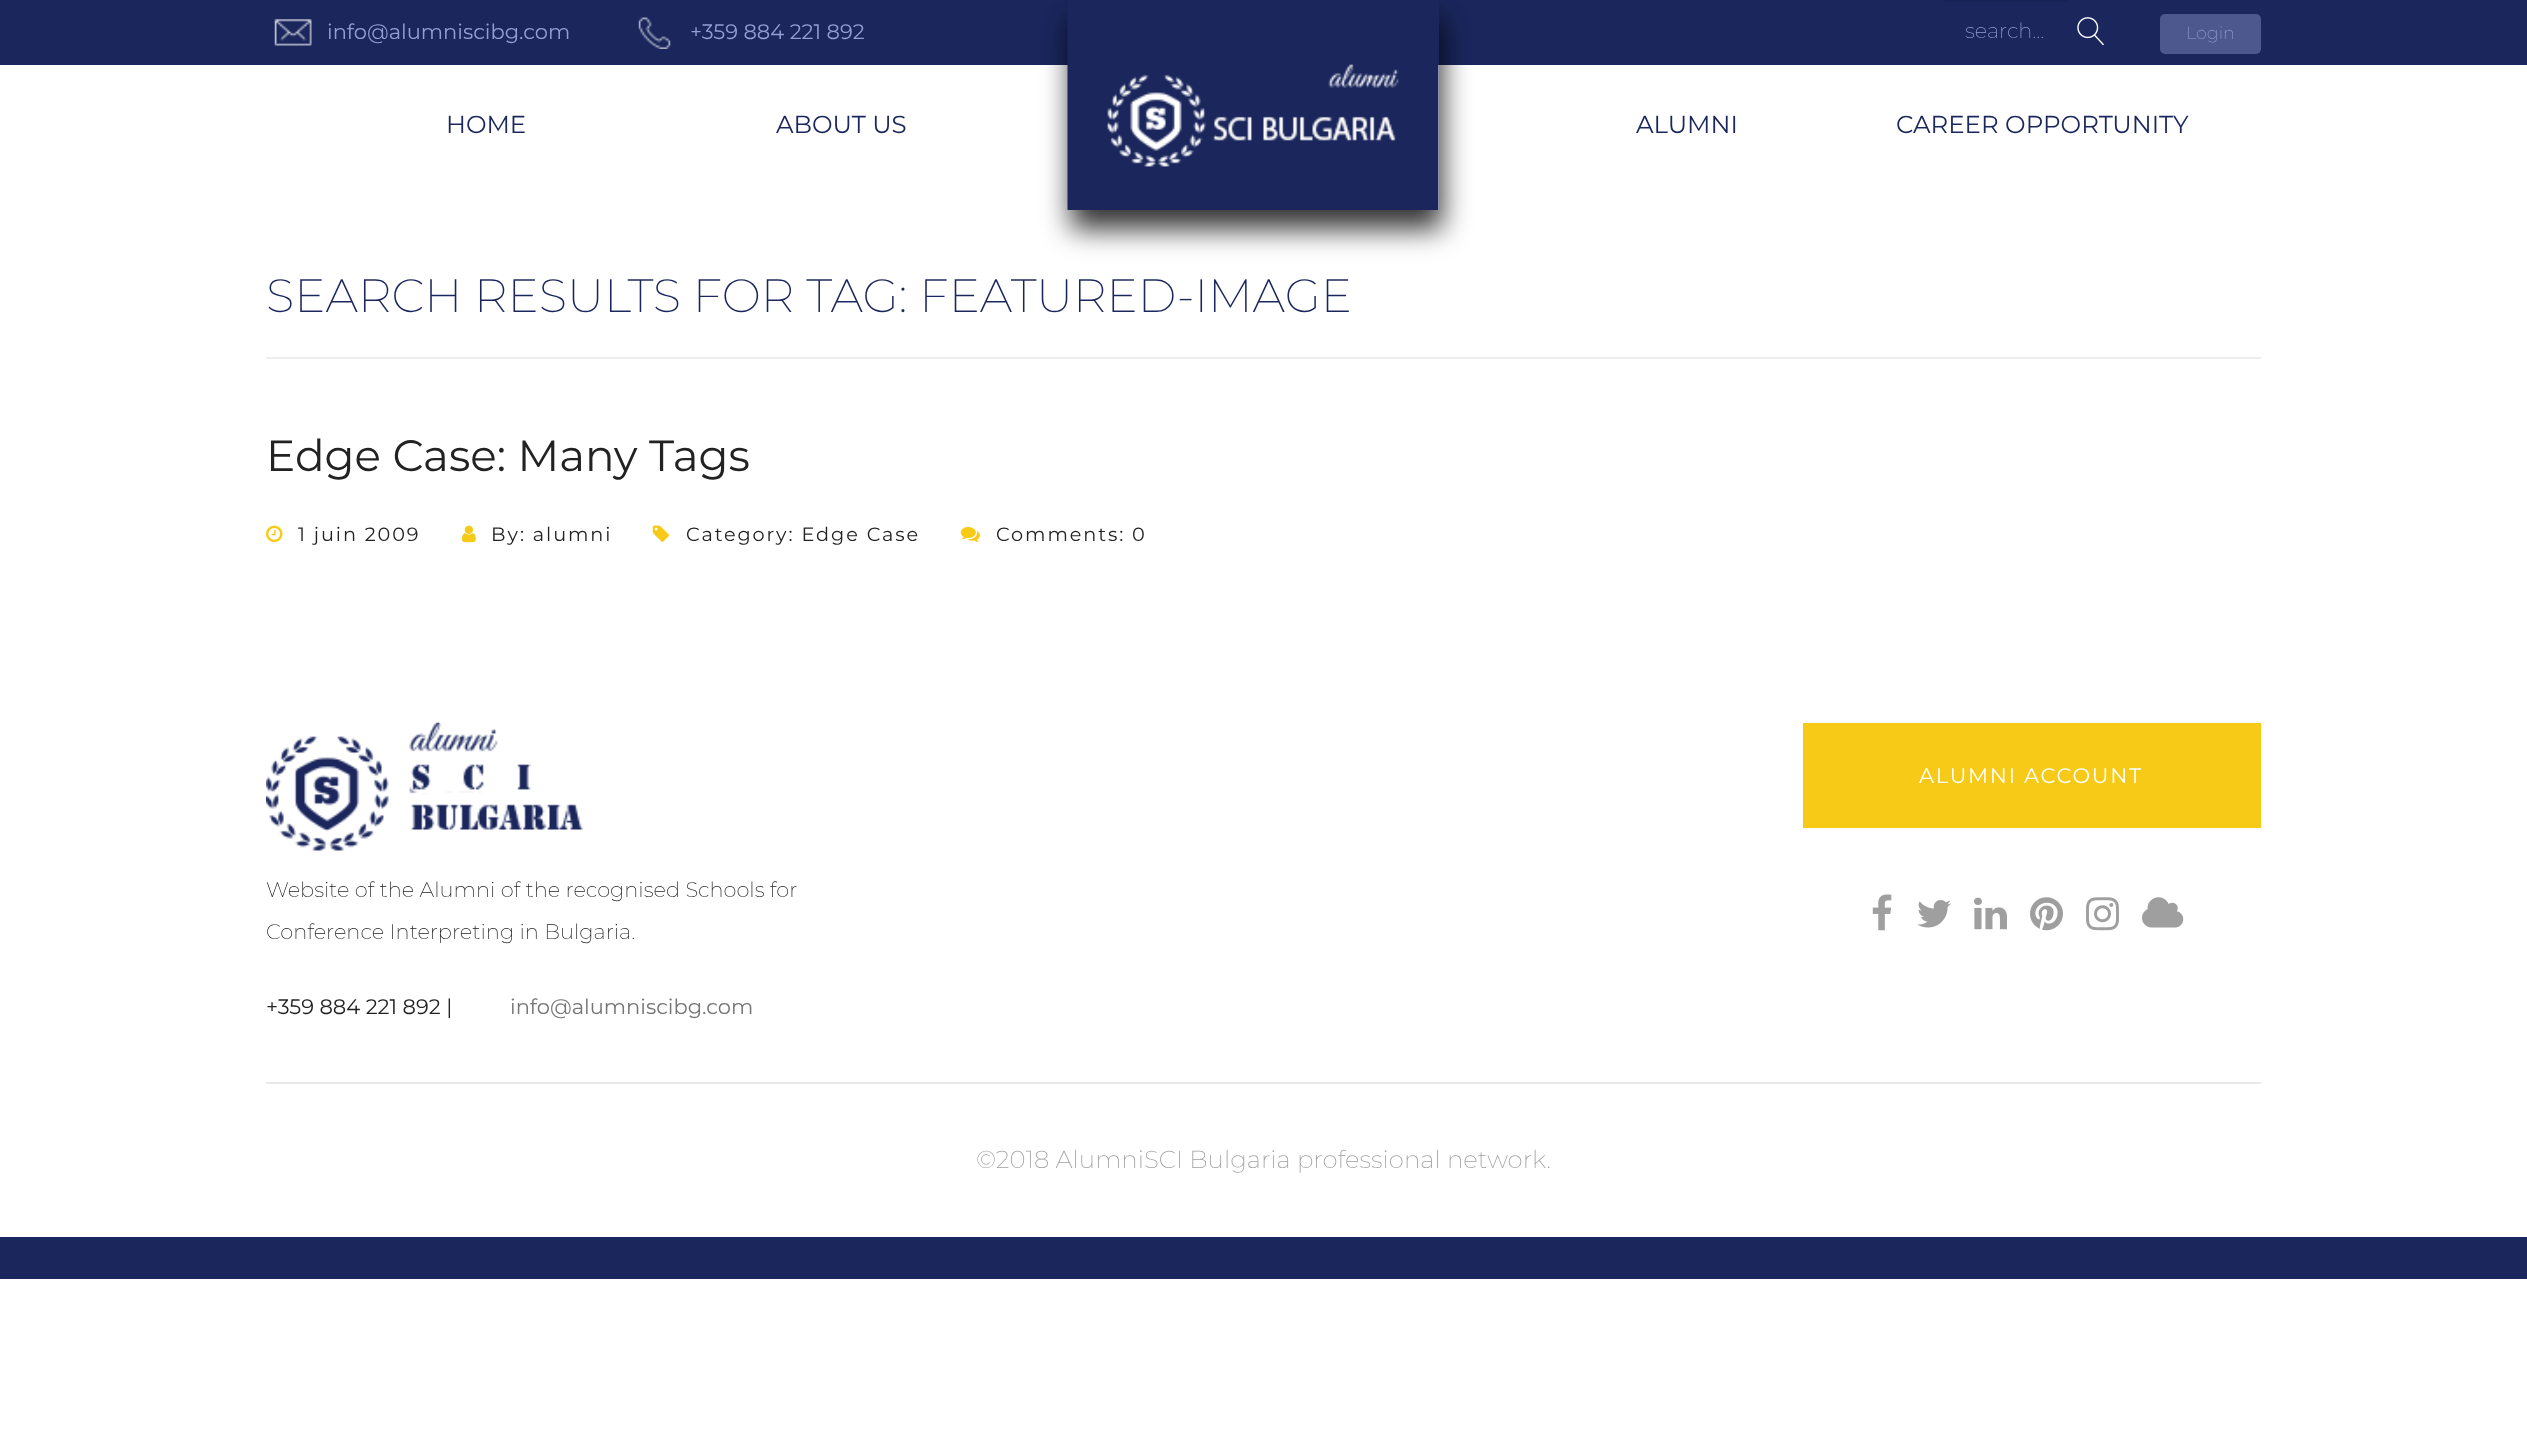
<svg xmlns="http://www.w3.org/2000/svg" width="2527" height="1432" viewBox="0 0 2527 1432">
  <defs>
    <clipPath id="clip1"><path d="M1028 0H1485V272H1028ZM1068 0H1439V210H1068Z" clip-rule="evenodd"/></clipPath>
    <filter id="blur1" x="-50%" y="-200%" width="200%" height="500%"><feGaussianBlur stdDeviation="14"/></filter>
  </defs>
  <rect width="100%" height="100%" fill="#ffffff"/>
  <rect x="0" y="0" width="2527" height="65" fill="#1a265c"/>
  <image x="274" y="19" width="38" height="27" href="img1.png"/>
  <text x="327" y="39" font-family="Montserrat" font-size="21" fill="#929ed4">info@alumniscibg.com</text>
  <image x="638" y="17" width="33" height="32" href="img2.png"/>
  <text x="690" y="39" font-family="Montserrat" font-size="21" fill="#929ed4">+359 884 221 892</text>
  <rect x="1944" y="0" width="123" height="2" fill="#182355"/>
  <text x="1965" y="38" font-family="Montserrat" font-size="21" font-weight="200" fill="#929ed4">search...</text>
  <image x="2077" y="17" width="27" height="29" href="img3.png"/>
  <rect x="2160" y="14" width="101" height="40" rx="5" fill="#4c588e"/>
  <text x="2186" y="39" font-family="Montserrat" font-size="17.5" font-weight="200" fill="#929ed4">Login</text>
  <g clip-path="url(#clip1)">
    <rect x="1071" y="19" width="371" height="210" fill="#000000" fill-opacity="0.8" filter="url(#blur1)"/>
  </g>
  <image x="1067" y="14" width="372" height="196" href="img4.png"/>
  <text x="446" y="133" font-family="Montserrat" font-size="24.5" fill="#1a265c">HOME</text>
  <text x="776" y="133" font-family="Montserrat" font-size="24.5" fill="#1a265c">ABOUT US</text>
  <text x="1636" y="133" font-family="Montserrat" font-size="24.5" fill="#1a265c">ALUMNI</text>
  <text x="1896" y="133" font-family="Montserrat" font-size="24.5" fill="#1a265c">CAREER OPPORTUNITY</text>
  <rect x="266" y="357" width="1995" height="2" fill="#eeeeee"/>
  <text x="266" y="312" font-family="Montserrat" font-size="46.7" font-weight="200" fill="#1a265c">SEARCH RESULTS FOR TAG: FEATURED-IMAGE</text>
  <text x="266" y="471" font-family="Montserrat" font-size="43.75" fill="#222222">Edge Case: Many Tags</text>
  <image x="266" y="525" width="17" height="18" href="img5.png"/>
  <text x="298" y="541" font-family="Montserrat" font-size="19.25" letter-spacing="1.9" fill="#222222">1 juin 2009</text>
  <image x="462" y="525" width="14" height="18" href="img6.png"/>
  <text x="491" y="541" font-family="Montserrat" font-size="19.25" letter-spacing="1.9" fill="#222222">By: alumni</text>
  <image x="652" y="525" width="17" height="17" href="img7.png"/>
  <text x="686" y="541" font-family="Montserrat" font-size="19.25" letter-spacing="1.9" fill="#222222">Category: Edge Case</text>
  <image x="960" y="527" width="20" height="16" href="img8.png"/>
  <text x="996" y="541" font-family="Montserrat" font-size="19.25" letter-spacing="1.9" fill="#222222">Comments: 0</text>
  <rect x="0" y="1237" width="2527" height="42" fill="#1a265c"/>
  <rect x="266" y="1082" width="1995" height="2" fill="#e9e9e9"/>
  <rect x="1803" y="723" width="458" height="105" fill="#f7ca18"/>
  <text x="1919" y="783" font-family="Montserrat" font-size="21" letter-spacing="1.75" fill="#ffffff">ALUMNI ACCOUNT</text>
  <image x="1872" y="894" width="20" height="37" href="img9.png"/>
  <image x="1917" y="900" width="34" height="28" href="img10.png"/>
  <image x="1974" y="897" width="33" height="33" href="img11.png"/>
  <image x="2030" y="897" width="33" height="34" href="img12.png"/>
  <image x="2086" y="897" width="33" height="34" href="img13.png"/>
  <image x="2142" y="897" width="42" height="31" href="img14.png"/>
  <image x="266" y="722" width="318" height="129" href="img15.png"/>
  <text x="266" y="897" font-family="Montserrat" font-size="21" font-weight="200" fill="#222222">Website of the Alumni of the recognised Schools for</text>
  <text x="266" y="939" font-family="Montserrat" font-size="21" font-weight="200" fill="#222222">Conference Interpreting in Bulgaria.</text>
  <text x="266" y="1014" font-family="Montserrat" font-size="21" fill="#222222">+359 884 221 892 |</text>
  <text x="510" y="1014" font-family="Montserrat" font-size="21" fill="#757575">info@alumniscibg.com</text>
  <text x="976" y="1168" font-family="Montserrat" font-size="24.5" font-weight="200" fill="#9f9f9f">©2018 AlumniSCI Bulgaria professional network.</text>
</svg>
